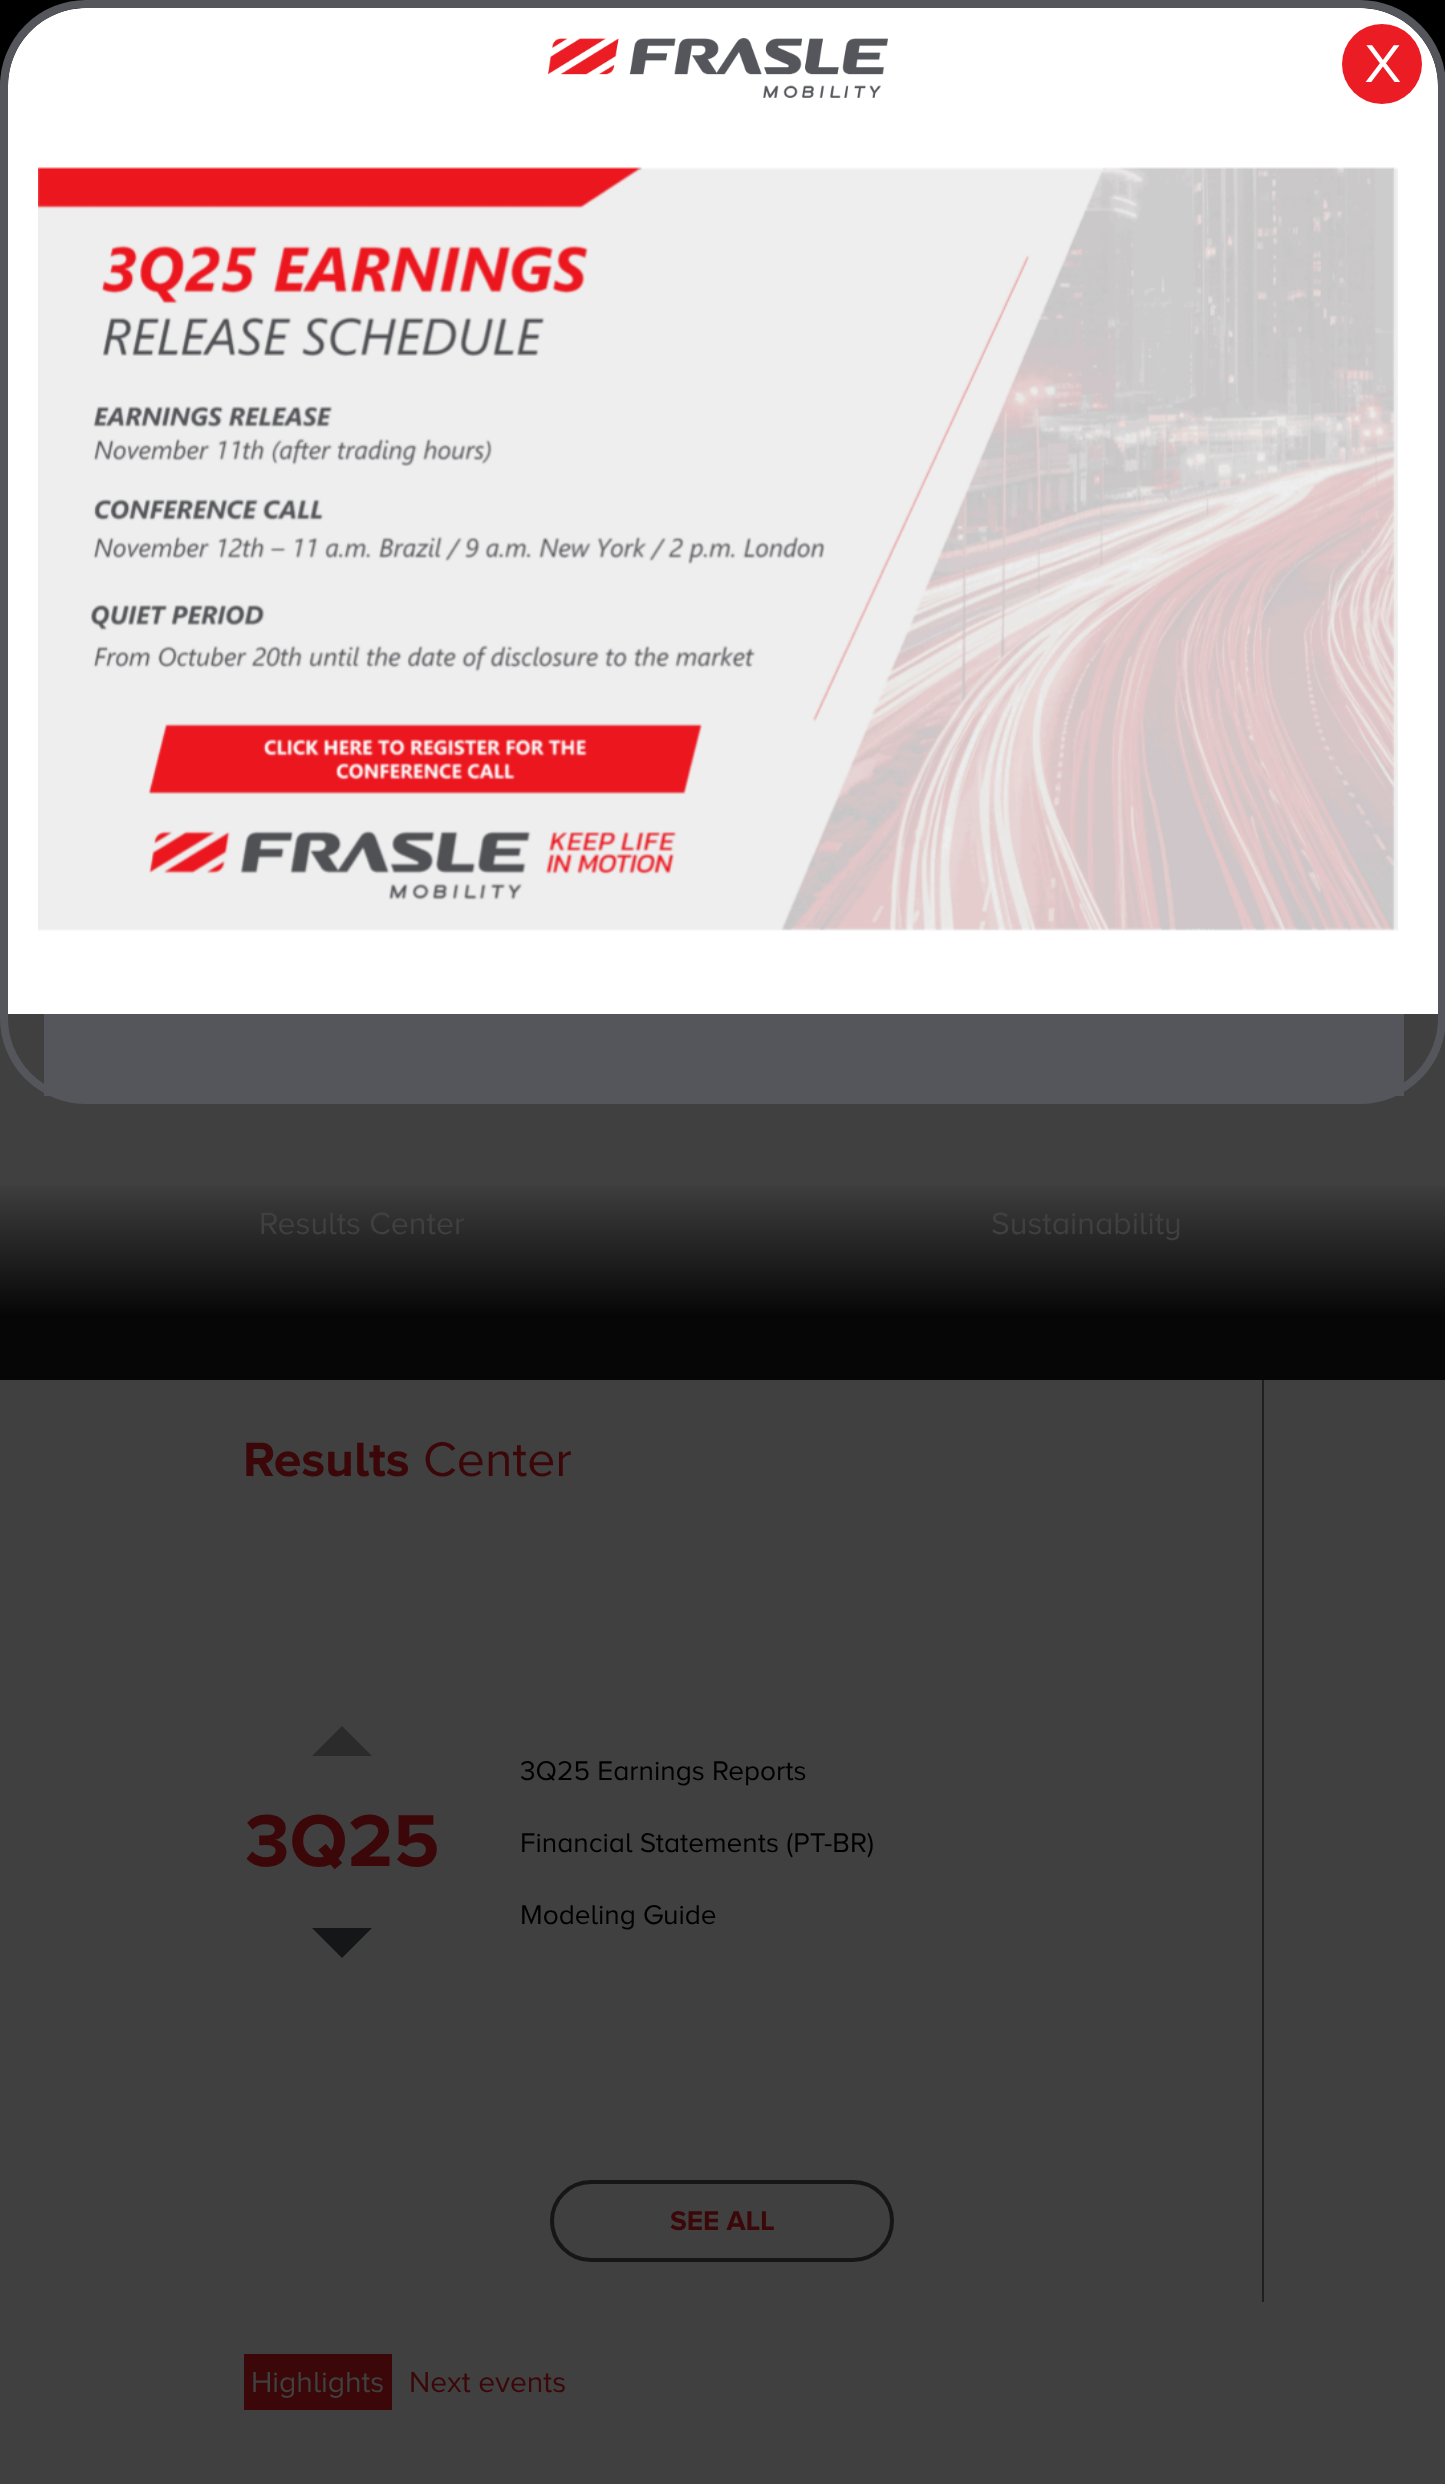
<svg xmlns="http://www.w3.org/2000/svg" width="1445" height="2484" viewBox="0 0 1445 2484">
  <defs>
    <linearGradient id="g1" gradientUnits="userSpaceOnUse" x1="723" y1="1380" x2="723" y2="1180"><stop offset="0" stop-color="#060606"/><stop offset="0.32" stop-color="#060606"/><stop offset="1" stop-color="#404040"/></linearGradient>
  </defs>
  <rect width="100%" height="100%" fill="#404040"/>
  <rect x="0" y="0" width="1445" height="80" fill="#000000"/>
  <path d="M86 8H1360C1403 8 1438 43 1438 86V1014H8V86C8 43 43 8 86 8Z" fill="#ffffff"/>
  <rect x="4" y="4" width="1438" height="1096" rx="82" fill="none" stroke="#54565b" stroke-width="8"/>
  <rect x="44" y="1014" width="1360" height="82" fill="#54565b"/>
  <image x="548" y="38" width="340" height="60" href="img1.png"/>
  <image x="38" y="167" width="1360" height="764" href="img2.png"/>
  <circle cx="1382" cy="64" r="40" fill="#ec1c24"/>
  <text x="1365" y="82" font-family="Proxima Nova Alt" font-size="55" fill="#ffffff">X</text>
  <rect x="0" y="1186" width="1445" height="194" fill="url(#g1)"/>
  <text x="259" y="1234" font-family="Proxima Nova Alt" font-size="32" fill="#404040">Results Center</text>
  <text x="991" y="1234" font-family="Proxima Nova Alt" font-size="32" fill="#404040">Sustainability</text>
  <rect x="1262" y="1380" width="2" height="922" fill="#1f1f1f"/>
  <text x="243" y="1476" font-family="Proxima Nova Alt" font-size="50" font-weight="bold" fill="#3b0709">Results</text>
  <text x="423" y="1476" font-family="Proxima Nova Alt" font-size="50" fill="#3b0709">Center</text>
  <path d="M372 1756H312L342 1726Z" fill="#2b2b2b"/>
  <text x="245" y="1866" font-family="Proxima Nova Alt" font-size="76" font-weight="bold" fill="#3b0709">3Q25</text>
  <path d="M312 1928H372L342 1958Z" fill="#151617"/>
  <text x="520" y="1780" font-family="Proxima Nova Alt" font-size="28" fill="#000000">3Q25 Earnings Reports</text>
  <text x="520" y="1852" font-family="Proxima Nova Alt" font-size="28" fill="#000000">Financial Statements (PT-BR)</text>
  <text x="520" y="1924" font-family="Proxima Nova Alt" font-size="28" fill="#000000">Modeling Guide</text>
  <rect x="552" y="2182" width="340" height="78" rx="39" fill="none" stroke="#151617" stroke-width="4"/>
  <text x="670" y="2230" font-family="Proxima Nova Alt" font-size="28" font-weight="bold" fill="#3b0709">SEE ALL</text>
  <rect x="244" y="2354" width="148" height="56" fill="#3b0709"/>
  <text x="251" y="2392" font-family="Proxima Nova Alt" font-size="30" fill="#404040">Highlights</text>
  <text x="409" y="2392" font-family="Proxima Nova Alt" font-size="30" fill="#3b0709">Next events</text>
</svg>
